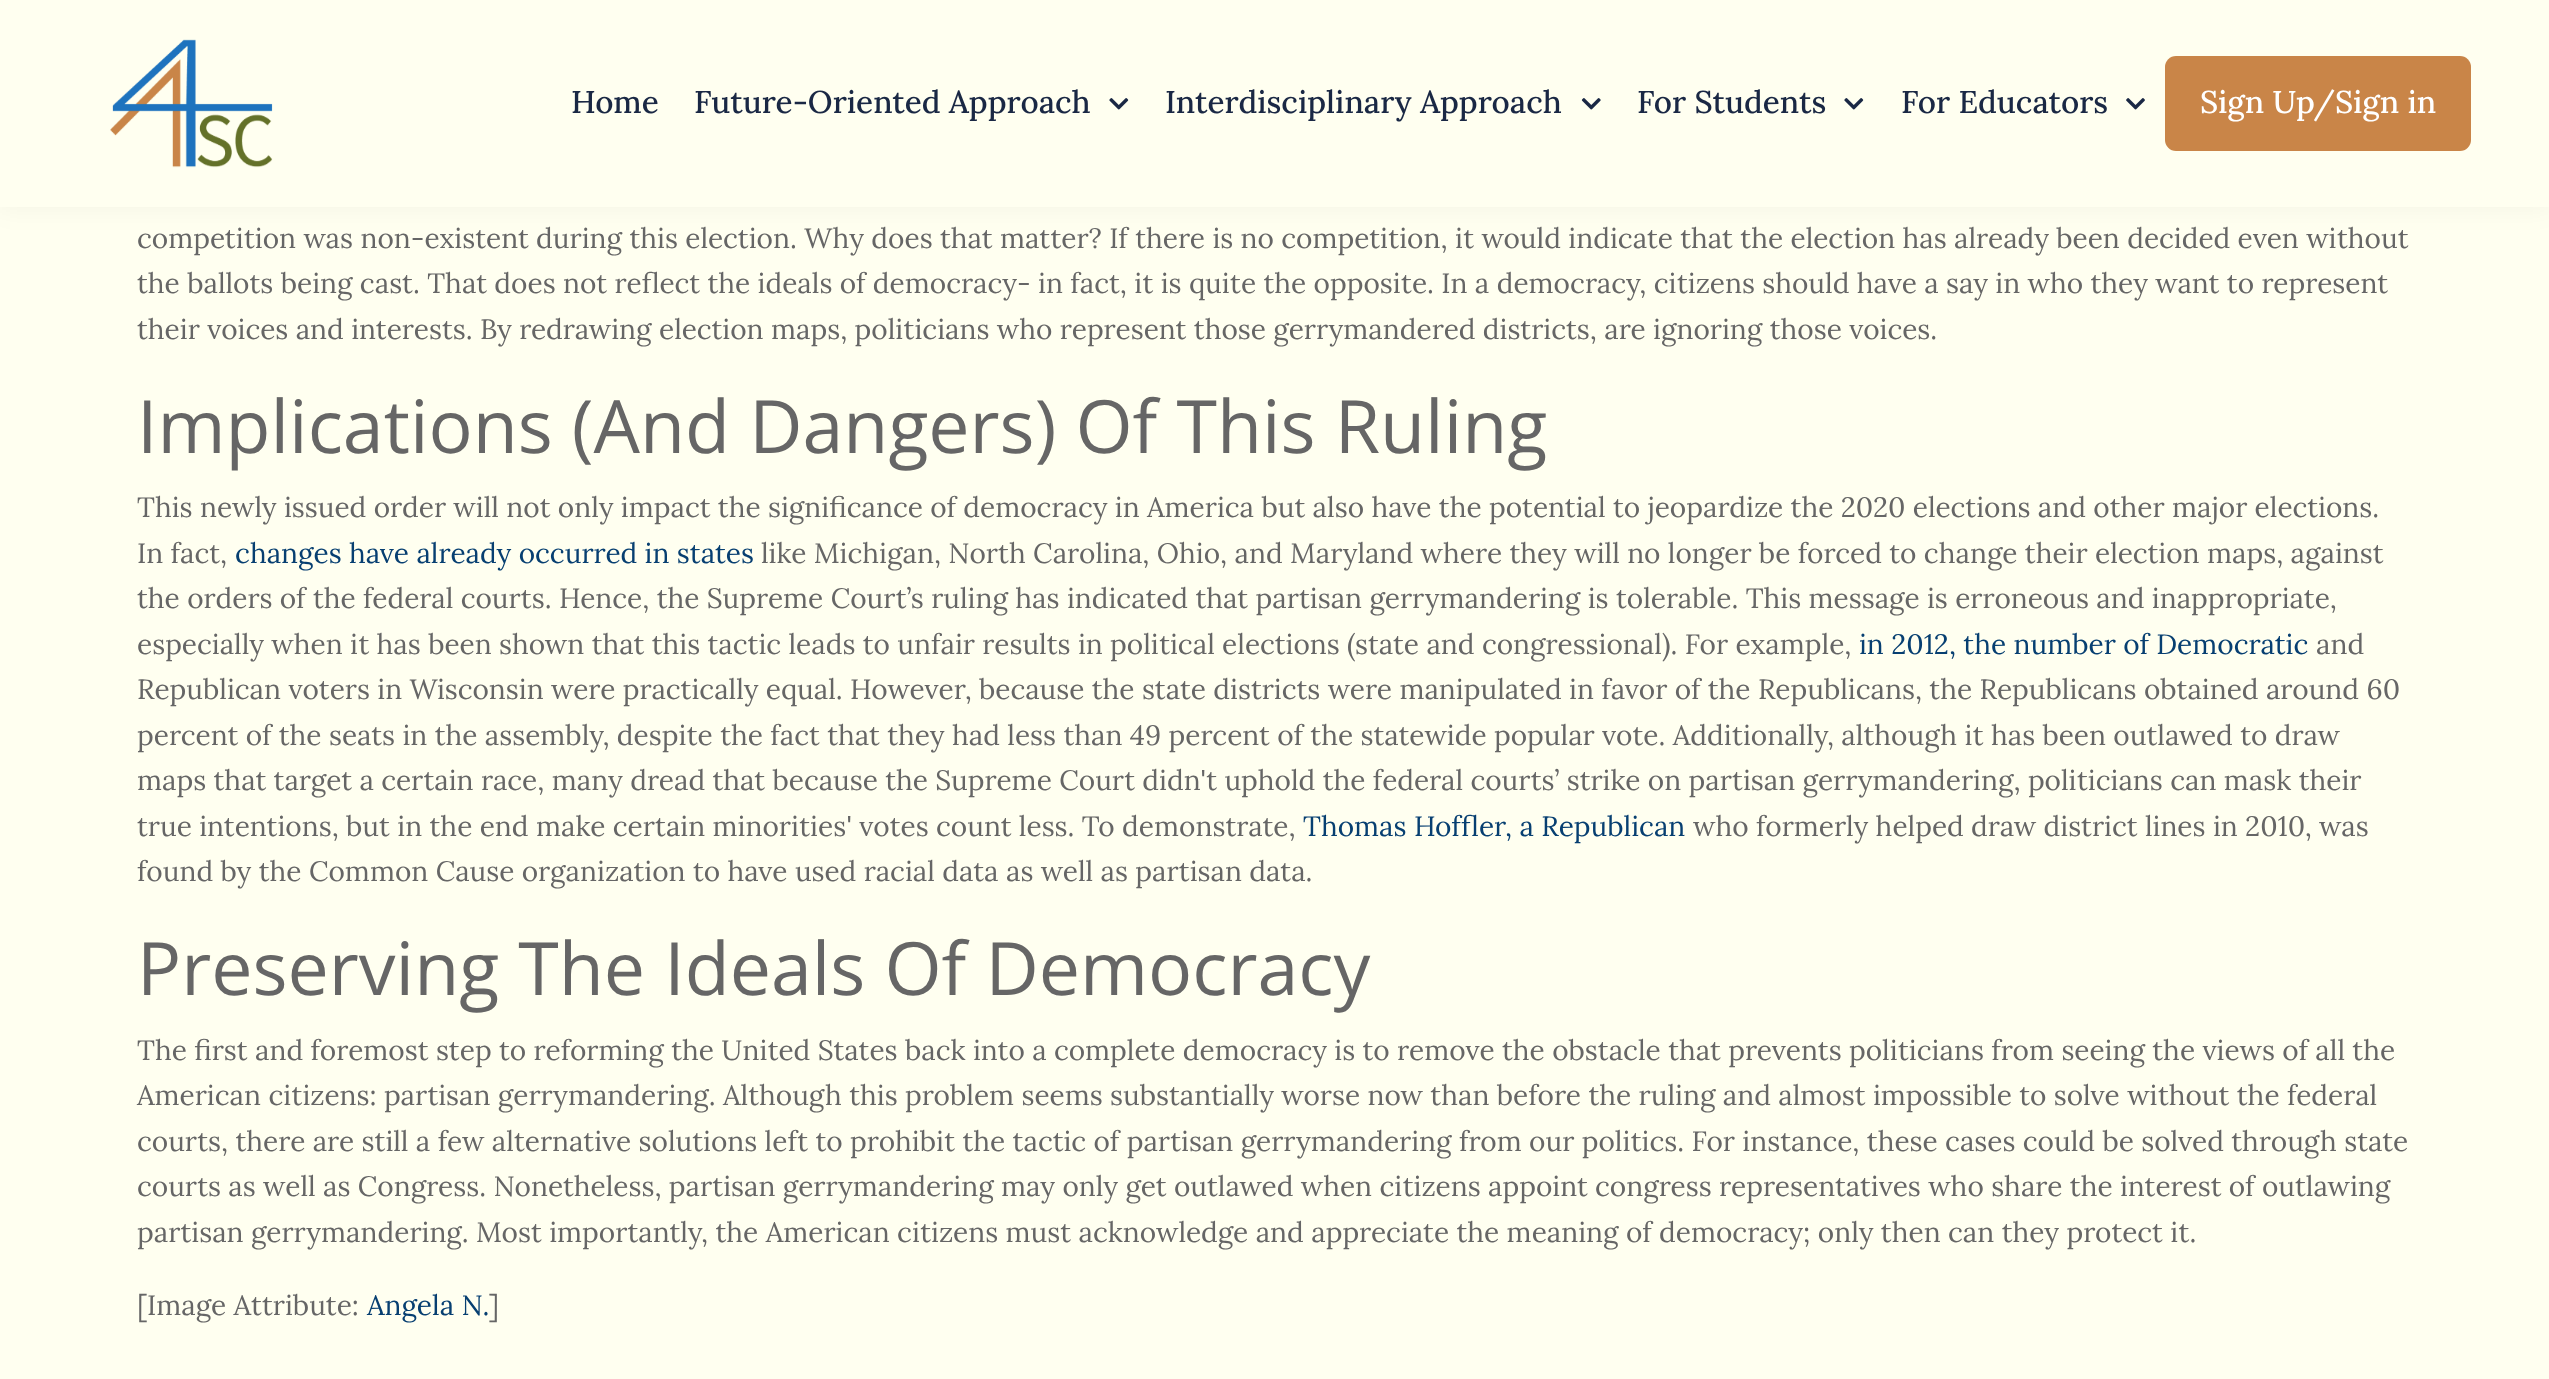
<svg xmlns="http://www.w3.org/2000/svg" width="2549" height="1379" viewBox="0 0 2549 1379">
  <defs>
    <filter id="blur1" x="-50%" y="-200%" width="200%" height="500%"><feGaussianBlur stdDeviation="13"/></filter>
  </defs>
  <rect width="100%" height="100%" fill="#fffff0"/>
  <rect x="-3" y="-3" width="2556" height="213" fill="#000000" fill-opacity="0.04" filter="url(#blur1)"/>
  <rect x="0" y="0" width="2549" height="207" fill="#fffff0"/>
  <image x="110" y="39" width="163" height="129" href="img1.png"/>
  <text x="571" y="113" font-family="Lora" font-size="31.5" font-weight="500" fill="#1a2844">Home</text>
  <text x="694" y="113" font-family="Lora" font-size="31.5" font-weight="500" fill="#1a2844">Future-Oriented Approach</text>
  <image x="1109" y="98" width="20" height="12" href="img2.png"/>
  <text x="1165" y="113" font-family="Lora" font-size="31.5" font-weight="500" fill="#1a2844">Interdisciplinary Approach</text>
  <image x="1581" y="98" width="20" height="12" href="img3.png"/>
  <text x="1637" y="113" font-family="Lora" font-size="31.5" font-weight="500" fill="#1a2844">For Students</text>
  <image x="1844" y="98" width="20" height="12" href="img2.png"/>
  <text x="1901" y="113" font-family="Lora" font-size="31.5" font-weight="500" fill="#1a2844">For Educators</text>
  <image x="2126" y="98" width="19" height="12" href="img4.png"/>
  <rect x="2165" y="56" width="306" height="95" rx="11" fill="#c98548"/>
  <text x="2200" y="113" font-family="Lora" font-size="31.5" font-weight="500" fill="#ffffff">Sign Up/Sign in</text>
  <text x="137" y="248" font-family="Lora" font-size="28" fill="#666666">competition was non-existent during this election. Why does that matter? If there is no competition, it would indicate that the election has already been decided even without</text>
  <text x="137" y="293" font-family="Lora" font-size="28" fill="#666666">the ballots being cast. That does not reflect the ideals of democracy- in fact, it is quite the opposite. In a democracy, citizens should have a say in who they want to represent</text>
  <text x="137" y="339" font-family="Lora" font-size="28" fill="#666666">their voices and interests. By redrawing election maps, politicians who represent those gerrymandered districts, are ignoring those voices.</text>
  <text x="137" y="453" font-family="Open Sans" font-size="73.5" fill="#666666">Implications (And Dangers) Of This Ruling</text>
  <text x="137" y="517" font-family="Lora" font-size="28" fill="#666666">This newly issued order will not only impact the significance of democracy in America but also have the potential to jeopardize the 2020 elections and other major elections.</text>
  <text x="137" y="563" font-family="Lora" font-size="28" fill="#666666">In fact,</text>
  <text x="235" y="563" font-family="Lora" font-size="28" fill="#073f71">changes have already occurred in states</text>
  <text x="761" y="563" font-family="Lora" font-size="28" fill="#666666">like Michigan, North Carolina, Ohio, and Maryland where they will no longer be forced to change their election maps, against</text>
  <text x="137" y="608" font-family="Lora" font-size="28" fill="#666666">the orders of the federal courts. Hence, the Supreme Court’s ruling has indicated that partisan gerrymandering is tolerable. This message is erroneous and inappropriate,</text>
  <text x="137" y="654" font-family="Lora" font-size="28" fill="#666666">especially when it has been shown that this tactic leads to unfair results in political elections (state and congressional). For example,</text>
  <text x="1859" y="654" font-family="Lora" font-size="28" fill="#073f71">in 2012, the number of Democratic</text>
  <text x="2316" y="654" font-family="Lora" font-size="28" fill="#666666">and</text>
  <text x="137" y="699" font-family="Lora" font-size="28" fill="#666666">Republican voters in Wisconsin were practically equal. However, because the state districts were manipulated in favor of the Republicans, the Republicans obtained around 60</text>
  <text x="137" y="745" font-family="Lora" font-size="28" fill="#666666">percent of the seats in the assembly, despite the fact that they had less than 49 percent of the statewide popular vote. Additionally, although it has been outlawed to draw</text>
  <text x="137" y="790" font-family="Lora" font-size="28" fill="#666666">maps that target a certain race, many dread that because the Supreme Court didn't uphold the federal courts’ strike on partisan gerrymandering, politicians can mask their</text>
  <text x="137" y="836" font-family="Lora" font-size="28" fill="#666666">true intentions, but in the end make certain minorities' votes count less. To demonstrate,</text>
  <text x="1303" y="836" font-family="Lora" font-size="28" fill="#073f71">Thomas Hoffler, a Republican</text>
  <text x="1693" y="836" font-family="Lora" font-size="28" fill="#666666">who formerly helped draw district lines in 2010, was</text>
  <text x="137" y="881" font-family="Lora" font-size="28" fill="#666666">found by the Common Cause organization to have used racial data as well as partisan data.</text>
  <text x="137" y="995" font-family="Open Sans" font-size="73.5" fill="#666666">Preserving The Ideals Of Democracy</text>
  <text x="137" y="1060" font-family="Lora" font-size="28" fill="#666666">The first and foremost step to reforming the United States back into a complete democracy is to remove the obstacle that prevents politicians from seeing the views of all the</text>
  <text x="137" y="1105" font-family="Lora" font-size="28" fill="#666666">American citizens: partisan gerrymandering. Although this problem seems substantially worse now than before the ruling and almost impossible to solve without the federal</text>
  <text x="137" y="1151" font-family="Lora" font-size="28" fill="#666666">courts, there are still a few alternative solutions left to prohibit the tactic of partisan gerrymandering from our politics. For instance, these cases could be solved through state</text>
  <text x="137" y="1196" font-family="Lora" font-size="28" fill="#666666">courts as well as Congress. Nonetheless, partisan gerrymandering may only get outlawed when citizens appoint congress representatives who share the interest of outlawing</text>
  <text x="137" y="1242" font-family="Lora" font-size="28" fill="#666666">partisan gerrymandering. Most importantly, the American citizens must acknowledge and appreciate the meaning of democracy; only then can they protect it.</text>
  <text x="137" y="1315" font-family="Lora" font-size="28" fill="#666666">[Image Attribute:</text>
  <text x="367" y="1315" font-family="Lora" font-size="28" fill="#073f71">Angela N.</text>
  <text x="489" y="1315" font-family="Lora" font-size="28" fill="#666666">]</text>
</svg>
